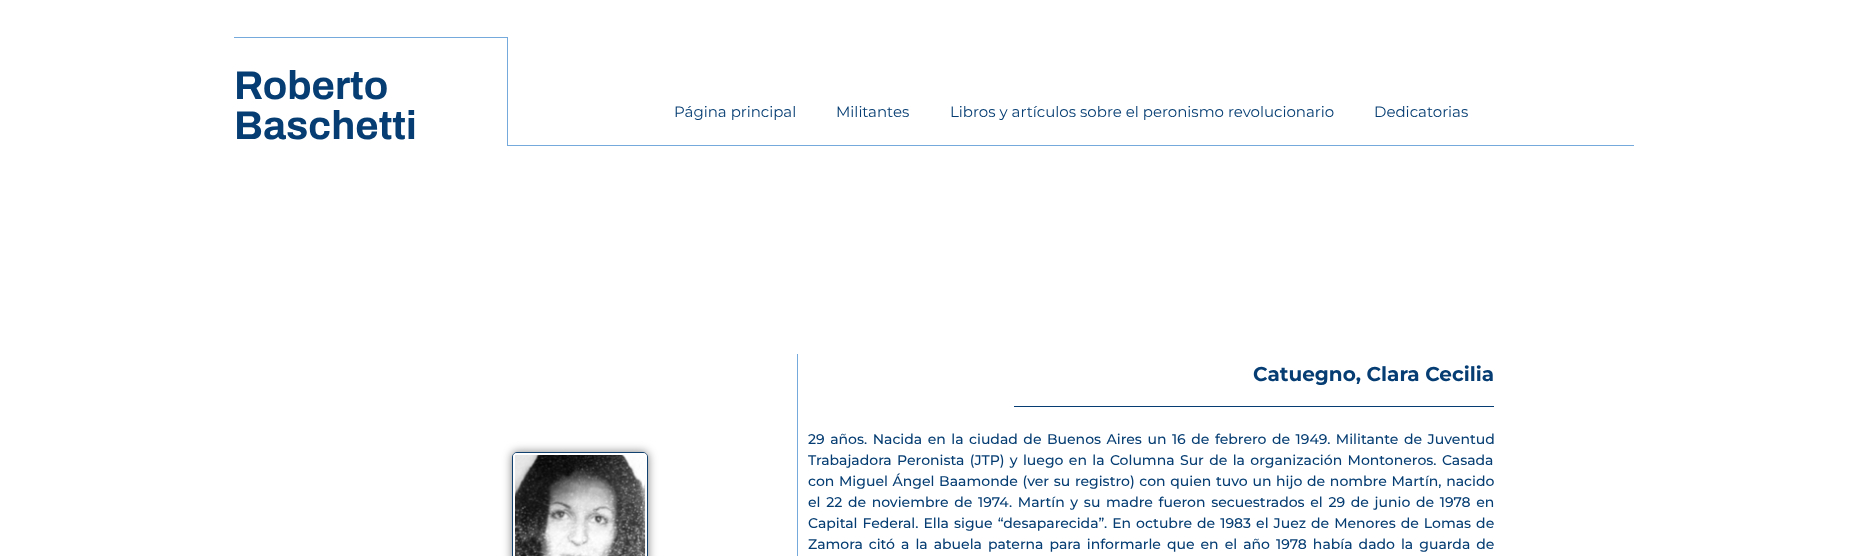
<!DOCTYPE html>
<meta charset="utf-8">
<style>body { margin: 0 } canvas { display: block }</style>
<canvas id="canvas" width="1868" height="556"></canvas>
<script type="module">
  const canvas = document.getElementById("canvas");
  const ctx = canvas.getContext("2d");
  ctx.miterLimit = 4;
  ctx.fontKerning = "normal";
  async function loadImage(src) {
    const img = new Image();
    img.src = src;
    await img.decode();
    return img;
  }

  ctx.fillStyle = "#ffffff";
  ctx.fillRect(0, 0, 1868, 556);
  ctx.fillStyle = "#75aadd";
  ctx.fillRect(234, 37, 274, 1);
  ctx.fillRect(507, 37, 1, 109);
  ctx.font = "bold 40px Archivo";
  ctx.fillStyle = "#063e73";
  ctx.fillText("Roberto", 234, 99);
  ctx.fillText("Baschetti", 234, 139);
  ctx.fillStyle = "#75aadd";
  ctx.fillRect(508, 145, 1126, 1);
  ctx.font = "15px Montserrat";
  ctx.fillStyle = "#063e73";
  ctx.fillText("Página principal", 674, 117);
  ctx.fillText("Militantes", 836, 117);
  ctx.fillText("Libros y artículos sobre el peronismo revolucionario", 950, 117);
  ctx.fillText("Dedicatorias", 1374, 117);
  ctx.fillStyle = "#75aadd";
  ctx.fillRect(797, 354, 1, 202);
  ctx.fillStyle = "rgba(0, 0, 0, 0.5)";
  ctx.filter = "blur(5px)";
  ctx.beginPath();
  ctx.roundRect(512, 452, 136, 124, 5);
  ctx.fill();
  ctx.filter = "none";
  ctx.beginPath();
  ctx.roundRect(512.5, 452.5, 135, 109, 4.5);
  ctx.strokeStyle = "#11416e";
  ctx.stroke();
  ctx.drawImage(await loadImage("img1.png"), 513, 453, 134, 103);
  ctx.font = "bold 20px Montserrat";
  ctx.fillStyle = "#063e73";
  ctx.fillText("Catuegno, Clara Cecilia", 1253, 381);
  ctx.fillRect(1014, 406, 480, 1);
  ctx.wordSpacing = "1.75px";
  ctx.font = "500 14px Montserrat";
  ctx.fillText("29 años. Nacida en la ciudad de Buenos Aires un 16 de febrero de 1949. Militante de Juventud", 808, 444);
  ctx.wordSpacing = "1.6px";
  ctx.fillText("Trabajadora Peronista (JTP) y luego en la Columna Sur de la organización Montoneros. Casada", 808, 465);
  ctx.wordSpacing = "0.9px";
  ctx.fillText("con Miguel Ángel Baamonde (ver su registro) con quien tuvo un hijo de nombre Martín, nacido", 808, 486);
  ctx.wordSpacing = "1.9px";
  ctx.fillText("el 22 de noviembre de 1974. Martín y su madre fueron secuestrados el 29 de junio de 1978 en", 808, 507);
  ctx.wordSpacing = "1.25px";
  ctx.fillText("Capital Federal. Ella sigue “desaparecida”. En octubre de 1983 el Juez de Menores de Lomas de", 808, 528);
  ctx.wordSpacing = "2.25px";
  ctx.fillText("Zamora citó a la abuela paterna para informarle que en el año 1978 había dado la guarda de", 808, 549);
</script>
